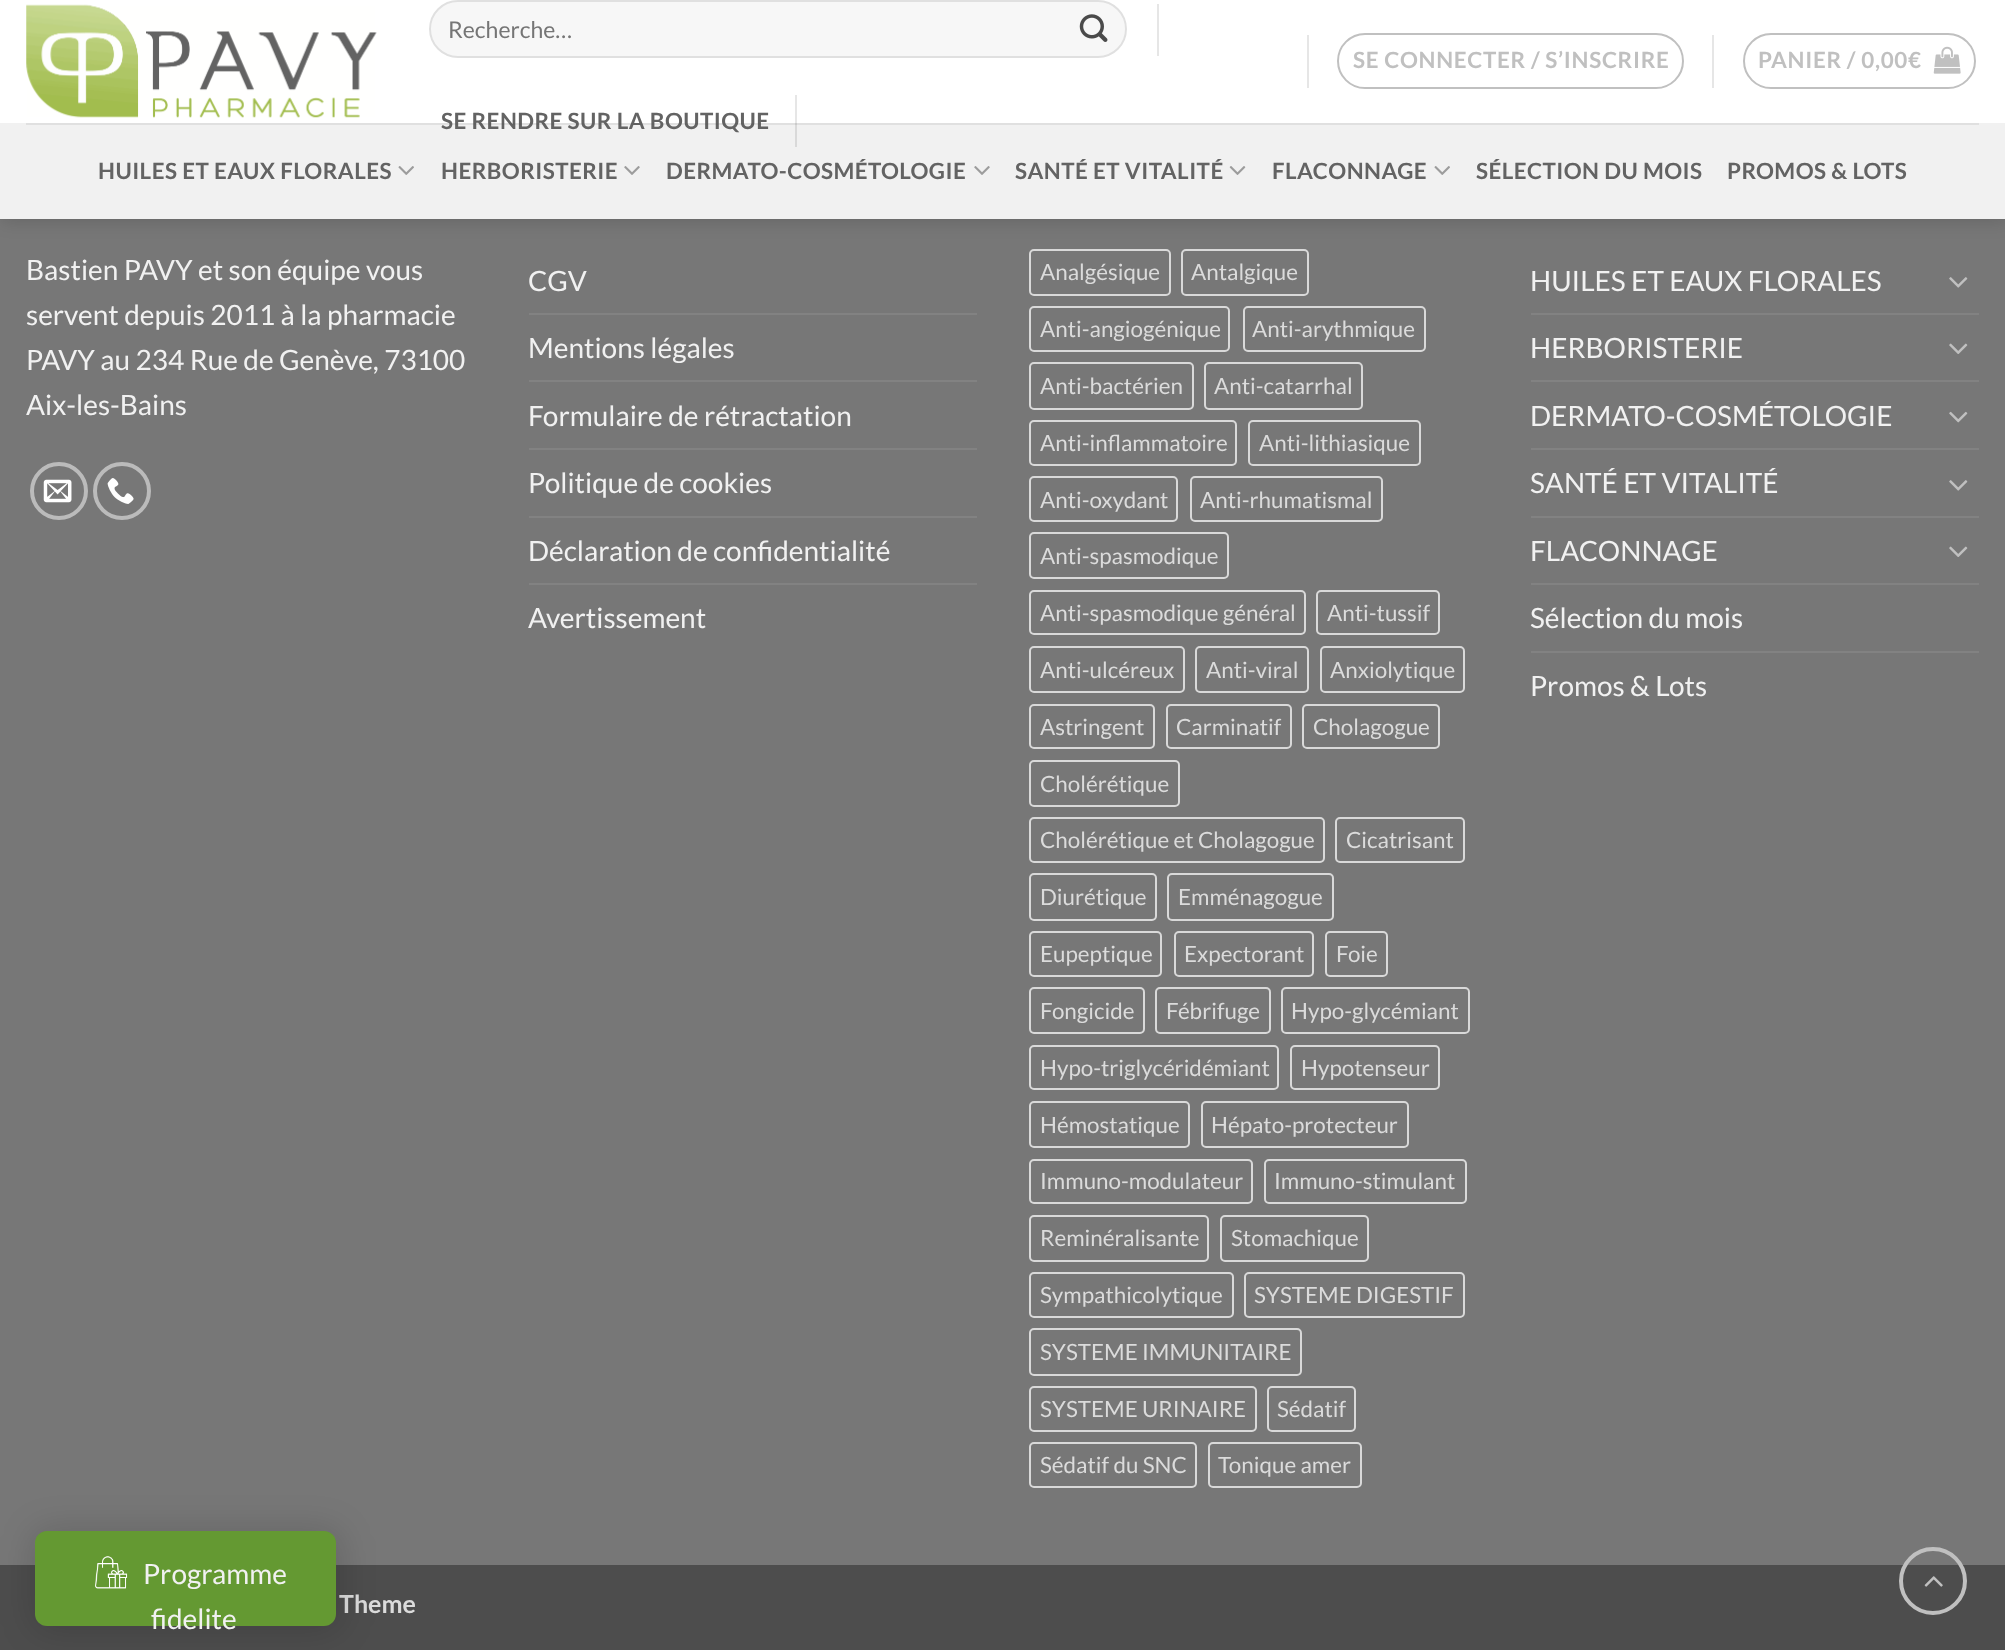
<!DOCTYPE html>
<meta charset="utf-8">
<style>body { margin: 0 } canvas { display: block }</style>
<canvas id="canvas" width="2005" height="1650"></canvas>
<script type="module">
  const canvas = document.getElementById("canvas");
  const ctx = canvas.getContext("2d");
  ctx.miterLimit = 4;
  ctx.fontKerning = "normal";
  async function loadImage(src) {
    const img = new Image();
    img.src = src;
    await img.decode();
    return img;
  }

  ctx.fillStyle = "#777777";
  ctx.fillRect(0, 0, 2005, 1650);
  ctx.fillStyle = "rgba(0, 0, 0, 0.15)";
  ctx.filter = "blur(9px)";
  ctx.beginPath();
  ctx.rect(2, 2, 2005, 219);
  ctx.fill();
  ctx.filter = "none";
  ctx.fillStyle = "#ffffff";
  ctx.fillRect(0, 0, 2005, 123);
  ctx.fillStyle = "#e6e6e6";
  ctx.fillRect(795, 95, 2, 28);
  ctx.drawImage(await loadImage("img1.png"), 26, 4, 351, 114);
  ctx.fillStyle = "#f7f7f7";
  ctx.beginPath();
  ctx.roundRect(429, 0, 698, 58, 29);
  ctx.fill();
  ctx.beginPath();
  ctx.roundRect(430, 1, 696, 56, 28);
  ctx.strokeStyle = "rgba(0, 0, 0, 0.09)";
  ctx.lineWidth = 2;
  ctx.stroke();
  ctx.font = "23px Lato";
  ctx.fillStyle = "#757575";
  ctx.fillText("Recherche…", 448, 38);
  ctx.drawImage(await loadImage("img2.png"), 1079, 14, 29, 28);
  ctx.fillStyle = "#e6e6e6";
  ctx.fillRect(1157, 4, 2, 52);
  ctx.fillStyle = "#f1f1f1";
  ctx.fillRect(0, 123, 2005, 96);
  ctx.letterSpacing = "0.45px";
  ctx.font = "bold 22.4px Lato";
  ctx.fillStyle = "#636363";
  ctx.fillText("SE RENDRE SUR LA BOUTIQUE", 441, 129);
  ctx.fillStyle = "#e6e6e6";
  ctx.fillRect(1307, 35, 2, 53);
  ctx.beginPath();
  ctx.roundRect(1338, 34, 345, 54, 27);
  ctx.strokeStyle = "#c0c0c0";
  ctx.stroke();
  ctx.letterSpacing = "0.7px";
  ctx.fillStyle = "#c0c0c0";
  ctx.fillText("SE CONNECTER / S’INSCRIRE", 1353, 68);
  ctx.fillStyle = "#e6e6e6";
  ctx.fillRect(1712, 35, 2, 53);
  ctx.beginPath();
  ctx.roundRect(1744, 34, 231, 54, 27);
  ctx.stroke();
  ctx.fillStyle = "#c0c0c0";
  ctx.fillText("PANIER / 0,00€", 1758, 68);
  ctx.drawImage(await loadImage("img3.png"), 1933, 46, 28, 28);
  ctx.fillStyle = "#d9d9d9";
  ctx.fillRect(795, 123, 2, 24);
  ctx.fillStyle = "rgba(74, 74, 74, 0.1)";
  ctx.fillRect(26, 123, 1953, 2);
  ctx.letterSpacing = "0.45px";
  ctx.fillStyle = "#636363";
  ctx.fillText("HUILES ET EAUX FLORALES", 98, 179);
  ctx.drawImage(await loadImage("img4.png"), 398, 166, 16, 9);
  ctx.fillText("HERBORISTERIE", 441, 179);
  ctx.drawImage(await loadImage("img5.png"), 624, 166, 16, 9);
  ctx.fillText("DERMATO-COSMÉTOLOGIE", 666, 179);
  ctx.drawImage(await loadImage("img5.png"), 974, 166, 16, 9);
  ctx.fillText("SANTÉ ET VITALITÉ", 1015, 179);
  ctx.drawImage(await loadImage("img6.png"), 1229, 166, 17, 9);
  ctx.fillText("FLACONNAGE", 1272, 179);
  ctx.drawImage(await loadImage("img4.png"), 1434, 166, 16, 9);
  ctx.fillText("SÉLECTION DU MOIS", 1476, 179);
  ctx.fillText("PROMOS & LOTS", 1727, 179);
  ctx.letterSpacing = "0px";
  ctx.font = "28px Lato";
  ctx.fillStyle = "#f1f1f1";
  ctx.fillText("Bastien PAVY et son équipe vous", 26, 280);
  ctx.fillText("servent depuis 2011 à la pharmacie", 26, 325);
  ctx.fillText("PAVY au 234 Rue de Genève, 73100", 26, 370);
  ctx.fillText("Aix-les-Bains", 26, 415);
  ctx.beginPath();
  ctx.arc(59, 491, 27, 0, Math.PI * 2);
  ctx.strokeStyle = "#bbbbbb";
  ctx.lineWidth = 4;
  ctx.stroke();
  ctx.drawImage(await loadImage("img7.png"), 43, 479, 29, 24);
  ctx.beginPath();
  ctx.arc(122, 491, 27, 0, Math.PI * 2);
  ctx.stroke();
  ctx.drawImage(await loadImage("img8.png"), 107, 478, 27, 26);
  ctx.fillText("CGV", 528, 291);
  ctx.fillStyle = "#828282";
  ctx.fillRect(529, 313, 448, 2);
  ctx.fillStyle = "#f1f1f1";
  ctx.fillText("Mentions légales", 528, 358);
  ctx.fillStyle = "#828282";
  ctx.fillRect(529, 380, 448, 2);
  ctx.fillStyle = "#f1f1f1";
  ctx.fillText("Formulaire de rétractation", 528, 426);
  ctx.fillStyle = "#828282";
  ctx.fillRect(529, 448, 448, 2);
  ctx.fillStyle = "#f1f1f1";
  ctx.fillText("Politique de cookies", 528, 493);
  ctx.fillStyle = "#828282";
  ctx.fillRect(529, 516, 448, 2);
  ctx.fillStyle = "#f1f1f1";
  ctx.fillText("Déclaration de confidentialité", 528, 561);
  ctx.fillStyle = "#828282";
  ctx.fillRect(529, 583, 448, 2);
  ctx.fillStyle = "#f1f1f1";
  ctx.fillText("Avertissement", 528, 628);
  ctx.beginPath();
  ctx.roundRect(1030, 250, 140, 45, 4);
  ctx.strokeStyle = "#d9d9d9";
  ctx.lineWidth = 2;
  ctx.stroke();
  ctx.font = "22.4px Lato";
  ctx.fillStyle = "#dbdbdb";
  ctx.fillText("Analgésique", 1040, 280);
  ctx.beginPath();
  ctx.roundRect(1182, 250, 126, 45, 4);
  ctx.stroke();
  ctx.fillText("Antalgique", 1191, 280);
  ctx.beginPath();
  ctx.roundRect(1030, 307, 199, 44, 4);
  ctx.stroke();
  ctx.fillText("Anti-angiogénique", 1040, 337);
  ctx.beginPath();
  ctx.roundRect(1244, 307, 181, 44, 4);
  ctx.stroke();
  ctx.fillText("Anti-arythmique", 1252, 337);
  ctx.beginPath();
  ctx.roundRect(1030, 363, 163, 46, 4);
  ctx.stroke();
  ctx.fillText("Anti-bactérien", 1040, 394);
  ctx.beginPath();
  ctx.roundRect(1205, 363, 157, 46, 4);
  ctx.stroke();
  ctx.fillText("Anti-catarrhal", 1214, 394);
  ctx.beginPath();
  ctx.roundRect(1030, 421, 206, 44, 4);
  ctx.stroke();
  ctx.fillText("Anti-inflammatoire", 1040, 451);
  ctx.beginPath();
  ctx.roundRect(1249, 421, 171, 44, 4);
  ctx.stroke();
  ctx.fillText("Anti-lithiasique", 1259, 451);
  ctx.beginPath();
  ctx.roundRect(1030, 477, 147, 44, 4);
  ctx.stroke();
  ctx.fillText("Anti-oxydant", 1040, 508);
  ctx.beginPath();
  ctx.roundRect(1191, 477, 191, 44, 4);
  ctx.stroke();
  ctx.fillText("Anti-rhumatismal", 1200, 508);
  ctx.beginPath();
  ctx.roundRect(1030, 533, 198, 45, 4);
  ctx.stroke();
  ctx.fillText("Anti-spasmodique", 1040, 564);
  ctx.beginPath();
  ctx.roundRect(1030, 591, 275, 43, 4);
  ctx.stroke();
  ctx.fillText("Anti-spasmodique général", 1040, 621);
  ctx.beginPath();
  ctx.roundRect(1317, 591, 122, 43, 4);
  ctx.stroke();
  ctx.fillText("Anti-tussif", 1327, 621);
  ctx.beginPath();
  ctx.roundRect(1030, 647, 154, 45, 4);
  ctx.stroke();
  ctx.fillText("Anti-ulcéreux", 1040, 678);
  ctx.beginPath();
  ctx.roundRect(1196, 647, 112, 45, 4);
  ctx.stroke();
  ctx.fillText("Anti-viral", 1206, 678);
  ctx.beginPath();
  ctx.roundRect(1321, 647, 143, 45, 4);
  ctx.stroke();
  ctx.fillText("Anxiolytique", 1330, 678);
  ctx.beginPath();
  ctx.roundRect(1030, 705, 124, 43, 4);
  ctx.stroke();
  ctx.fillText("Astringent", 1040, 735);
  ctx.beginPath();
  ctx.roundRect(1167, 705, 124, 43, 4);
  ctx.stroke();
  ctx.fillText("Carminatif", 1176, 735);
  ctx.beginPath();
  ctx.roundRect(1303, 705, 136, 43, 4);
  ctx.stroke();
  ctx.fillText("Cholagogue", 1313, 735);
  ctx.beginPath();
  ctx.roundRect(1030, 761, 149, 45, 4);
  ctx.stroke();
  ctx.fillText("Cholérétique", 1040, 792);
  ctx.beginPath();
  ctx.roundRect(1030, 818, 294, 44, 4);
  ctx.stroke();
  ctx.fillText("Cholérétique et Cholagogue", 1040, 848);
  ctx.beginPath();
  ctx.roundRect(1336, 818, 128, 44, 4);
  ctx.stroke();
  ctx.fillText("Cicatrisant", 1346, 848);
  ctx.beginPath();
  ctx.roundRect(1030, 874, 126, 46, 4);
  ctx.stroke();
  ctx.fillText("Diurétique", 1040, 905);
  ctx.beginPath();
  ctx.roundRect(1168, 874, 165, 46, 4);
  ctx.stroke();
  ctx.fillText("Emménagogue", 1178, 905);
  ctx.beginPath();
  ctx.roundRect(1030, 932, 131, 44, 4);
  ctx.stroke();
  ctx.fillText("Eupeptique", 1040, 962);
  ctx.beginPath();
  ctx.roundRect(1175, 932, 138, 44, 4);
  ctx.stroke();
  ctx.fillText("Expectorant", 1184, 962);
  ctx.beginPath();
  ctx.roundRect(1326, 932, 61, 44, 4);
  ctx.stroke();
  ctx.fillText("Foie", 1336, 962);
  ctx.beginPath();
  ctx.roundRect(1030, 988, 114, 45, 4);
  ctx.stroke();
  ctx.fillText("Fongicide", 1040, 1019);
  ctx.beginPath();
  ctx.roundRect(1156, 988, 114, 45, 4);
  ctx.stroke();
  ctx.fillText("Fébrifuge", 1166, 1019);
  ctx.beginPath();
  ctx.roundRect(1282, 988, 187, 45, 4);
  ctx.stroke();
  ctx.fillText("Hypo-glycémiant", 1291, 1019);
  ctx.beginPath();
  ctx.roundRect(1030, 1046, 248, 43, 4);
  ctx.stroke();
  ctx.fillText("Hypo-triglycéridémiant", 1040, 1076);
  ctx.beginPath();
  ctx.roundRect(1291, 1046, 148, 43, 4);
  ctx.stroke();
  ctx.fillText("Hypotenseur", 1301, 1076);
  ctx.beginPath();
  ctx.roundRect(1030, 1102, 159, 45, 4);
  ctx.stroke();
  ctx.fillText("Hémostatique", 1040, 1133);
  ctx.beginPath();
  ctx.roundRect(1202, 1102, 206, 45, 4);
  ctx.stroke();
  ctx.fillText("Hépato-protecteur", 1211, 1133);
  ctx.beginPath();
  ctx.roundRect(1030, 1160, 222, 43, 4);
  ctx.stroke();
  ctx.fillText("Immuno-modulateur", 1040, 1189);
  ctx.beginPath();
  ctx.roundRect(1265, 1160, 201, 43, 4);
  ctx.stroke();
  ctx.fillText("Immuno-stimulant", 1274, 1189);
  ctx.beginPath();
  ctx.roundRect(1030, 1216, 178, 45, 4);
  ctx.stroke();
  ctx.fillText("Reminéralisante", 1040, 1246);
  ctx.beginPath();
  ctx.roundRect(1221, 1216, 147, 45, 4);
  ctx.stroke();
  ctx.fillText("Stomachique", 1231, 1246);
  ctx.beginPath();
  ctx.roundRect(1030, 1273, 203, 44, 4);
  ctx.stroke();
  ctx.fillText("Sympathicolytique", 1040, 1303);
  ctx.beginPath();
  ctx.roundRect(1245, 1273, 219, 44, 4);
  ctx.stroke();
  ctx.fillText("SYSTEME DIGESTIF", 1254, 1303);
  ctx.beginPath();
  ctx.roundRect(1030, 1329, 271, 46, 4);
  ctx.stroke();
  ctx.fillText("SYSTEME IMMUNITAIRE", 1040, 1360);
  ctx.beginPath();
  ctx.roundRect(1030, 1387, 226, 44, 4);
  ctx.stroke();
  ctx.fillText("SYSTEME URINAIRE", 1040, 1417);
  ctx.beginPath();
  ctx.roundRect(1268, 1387, 87, 44, 4);
  ctx.stroke();
  ctx.fillText("Sédatif", 1277, 1417);
  ctx.beginPath();
  ctx.roundRect(1030, 1443, 166, 44, 4);
  ctx.stroke();
  ctx.fillText("Sédatif du SNC", 1040, 1473);
  ctx.beginPath();
  ctx.roundRect(1209, 1443, 152, 44, 4);
  ctx.stroke();
  ctx.fillText("Tonique amer", 1218, 1473);
  ctx.font = "28px Lato";
  ctx.fillStyle = "#f1f1f1";
  ctx.fillText("HUILES ET EAUX FLORALES", 1530, 291);
  ctx.drawImage(await loadImage("img9.png"), 1949, 277, 19, 11);
  ctx.fillStyle = "#828282";
  ctx.fillRect(1531, 313, 448, 2);
  ctx.fillStyle = "#f1f1f1";
  ctx.fillText("HERBORISTERIE", 1530, 358);
  ctx.drawImage(await loadImage("img10.png"), 1949, 343, 19, 11);
  ctx.fillStyle = "#828282";
  ctx.fillRect(1531, 380, 448, 2);
  ctx.fillStyle = "#f1f1f1";
  ctx.fillText("DERMATO-COSMÉTOLOGIE", 1530, 426);
  ctx.drawImage(await loadImage("img11.png"), 1949, 411, 19, 12);
  ctx.fillStyle = "#828282";
  ctx.fillRect(1531, 448, 448, 2);
  ctx.fillStyle = "#f1f1f1";
  ctx.fillText("SANTÉ ET VITALITÉ", 1530, 493);
  ctx.drawImage(await loadImage("img9.png"), 1949, 480, 19, 11);
  ctx.fillStyle = "#828282";
  ctx.fillRect(1531, 516, 448, 2);
  ctx.fillStyle = "#f1f1f1";
  ctx.fillText("FLACONNAGE", 1530, 561);
  ctx.drawImage(await loadImage("img10.png"), 1949, 546, 19, 11);
  ctx.fillStyle = "#828282";
  ctx.fillRect(1531, 583, 448, 2);
  ctx.fillStyle = "#f1f1f1";
  ctx.fillText("Sélection du mois", 1530, 628);
  ctx.fillStyle = "#828282";
  ctx.fillRect(1531, 651, 448, 2);
  ctx.fillStyle = "#f1f1f1";
  ctx.fillText("Promos & Lots", 1530, 696);
  ctx.fillStyle = "#4d4d4d";
  ctx.fillRect(0, 1565, 2005, 85);
  ctx.font = "bold 25px Lato";
  ctx.fillStyle = "#dbdbdb";
  ctx.fillText("Theme", 339, 1613);
  ctx.beginPath();
  ctx.arc(1933, 1581, 32, 0, Math.PI * 2);
  ctx.strokeStyle = "#c0c0c0";
  ctx.lineWidth = 4;
  ctx.stroke();
  ctx.drawImage(await loadImage("img12.png"), 1924, 1576, 19, 11);
  ctx.fillStyle = "rgba(0, 0, 0, 0.15)";
  ctx.filter = "blur(17.5px)";
  ctx.beginPath();
  ctx.roundRect(33, 1530, 308, 101, 16);
  ctx.fill();
  ctx.filter = "none";
  ctx.fillStyle = "#649932";
  ctx.beginPath();
  ctx.roundRect(35, 1531, 301, 95, 12);
  ctx.fill();
  ctx.drawImage(await loadImage("img13.png"), 95, 1556, 33, 33);
  ctx.font = "28px Lato";
  ctx.fillStyle = "#f1f1f1";
  ctx.fillText("Programme", 143, 1584);
  ctx.fillText("fidelite", 151, 1629);
</script>
